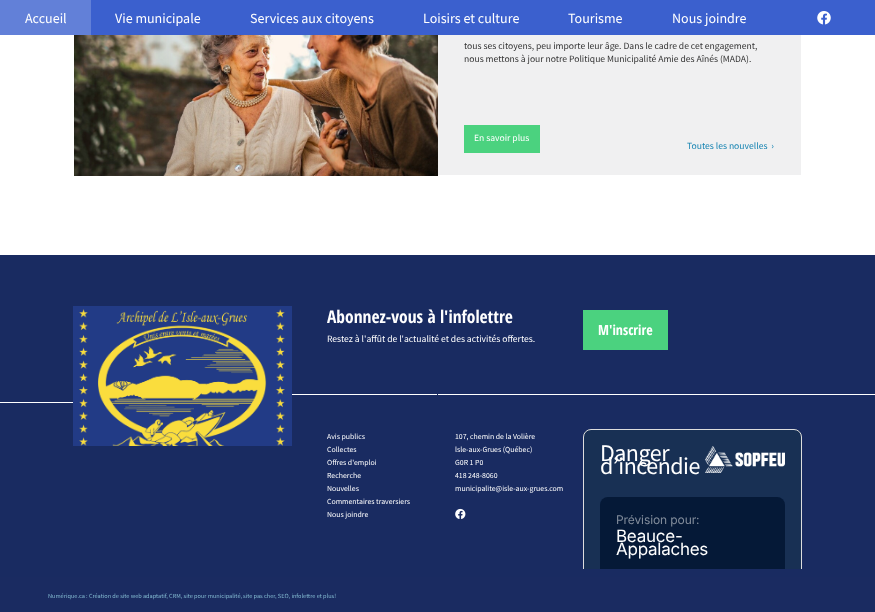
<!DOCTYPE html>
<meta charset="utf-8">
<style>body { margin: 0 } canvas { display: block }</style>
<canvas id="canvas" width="875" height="612"></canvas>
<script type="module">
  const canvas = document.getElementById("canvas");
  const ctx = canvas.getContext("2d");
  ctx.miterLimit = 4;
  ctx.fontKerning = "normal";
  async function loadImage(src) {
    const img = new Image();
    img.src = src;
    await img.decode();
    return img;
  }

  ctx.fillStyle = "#ffffff";
  ctx.fillRect(0, 0, 875, 612);
  ctx.fillStyle = "#3b60ce";
  ctx.fillRect(91, 0, 784, 35);
  ctx.fillStyle = "#6280d8";
  ctx.fillRect(0, 0, 91, 35);
  ctx.font = "14px Source Sans Pro";
  ctx.fillStyle = "#ffffff";
  ctx.fillText("Accueil", 25, 23);
  ctx.fillText("Vie municipale", 115, 23);
  ctx.fillText("Services aux citoyens", 250, 23);
  ctx.fillText("Loisirs et culture", 423, 23);
  ctx.fillText("Tourisme", 568, 23);
  ctx.fillText("Nous joindre", 672, 23);
  ctx.drawImage(await loadImage("img1.png"), 817, 11, 14, 14);
  ctx.drawImage(await loadImage("img2.png"), 74, 35, 364, 141);
  ctx.fillStyle = "#f0f0f1";
  ctx.fillRect(438, 35, 363, 140);
  ctx.font = "9.6px Source Sans Pro";
  ctx.fillStyle = "#353535";
  ctx.fillText("tous ses citoyens, peu importe leur âge. Dans le cadre de cet engagement,", 464, 49);
  ctx.fillText("nous mettons à jour notre Politique Municipalité Amie des Aînés (MADA).", 464, 62);
  ctx.fillStyle = "#4bd27f";
  ctx.fillRect(464, 125, 76, 28);
  ctx.fillStyle = "#ffffff";
  ctx.fillText("En savoir plus", 474, 141);
  ctx.fillStyle = "#1784b2";
  ctx.fillText("Toutes les nouvelles  ›", 687, 149);
  ctx.fillStyle = "#192b61";
  ctx.fillRect(0, 255, 875, 322);
  ctx.fillStyle = "#223b86";
  ctx.fillRect(73, 306, 219, 140);
  ctx.drawImage(await loadImage("img3.png"), 79, 309, 206, 137);
  ctx.font = "bold 17.5px Open Sans Condensed";
  ctx.fillStyle = "#ffffff";
  ctx.fillText("Abonnez-vous à l'infolettre", 327, 323);
  ctx.font = "9.6px Source Sans Pro";
  ctx.fillText("Restez à l'affût de l'actualité et des activités offertes.", 327, 342);
  ctx.fillStyle = "#4bd27f";
  ctx.fillRect(583, 310, 85, 40);
  ctx.font = "bold 14px Open Sans Condensed";
  ctx.fillStyle = "#ffffff";
  ctx.fillText("M'inscrire", 598, 335);
  ctx.fillRect(0, 402, 73, 1);
  ctx.fillRect(292, 394, 145, 1);
  ctx.font = "7.75px Source Sans Pro";
  ctx.fillText("Avis publics", 327, 439);
  ctx.fillText("Collectes", 327, 452);
  ctx.fillText("Offres d'emploi", 327, 465);
  ctx.fillText("Recherche", 327, 478);
  ctx.fillText("Nouvelles", 327, 491);
  ctx.fillText("Commentaires traversiers", 327, 504);
  ctx.fillText("Nous joindre", 327, 517);
  ctx.fillRect(438, 394, 437, 1);
  ctx.fillText("107, chemin de la Volière", 455, 439);
  ctx.fillText("lsle-aux-Grues (Québec)", 455, 452);
  ctx.fillText("G0R 1 P0", 455, 465);
  ctx.fillText("418 248-8060", 455, 478);
  ctx.fillText("municipalite@isle-aux-grues.com", 455, 491);
  ctx.drawImage(await loadImage("img4.png"), 455, 508, 11, 11);
  ctx.fillStyle = "#183054";
  ctx.beginPath();
  ctx.roundRect(583, 429, 219, 140, [8, 8, 0, 0]);
  ctx.fill();
  ctx.fillStyle = "#1a2b61";
  ctx.fillRect(0, 577, 875, 35);
  ctx.save();
  ctx.beginPath();
  ctx.rect(583, 429, 219, 140);
  ctx.clip();
  ctx.beginPath();
  ctx.roundRect(583.5, 429.5, 218, 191, 7.5);
  ctx.strokeStyle = "#dddddd";
  ctx.stroke();
  ctx.restore();
  ctx.letterSpacing = "-0.5px";
  ctx.font = "24px Source Sans Pro";
  ctx.fillStyle = "#ffffff";
  ctx.fillText("Danger", 600, 461);
  ctx.fillText("d’incendie", 600, 474);
  ctx.drawImage(await loadImage("img5.png"), 705, 446, 80, 27);
  ctx.fillStyle = "#051937";
  ctx.beginPath();
  ctx.roundRect(600, 497, 185, 72, [8, 8, 0, 0]);
  ctx.fill();
  ctx.letterSpacing = "-0.1px";
  ctx.font = "12px Inter";
  ctx.fillStyle = "#828c9b";
  ctx.fillText("Prévision pour:", 616, 524);
  ctx.letterSpacing = "-0.25px";
  ctx.font = "17px Inter";
  ctx.fillStyle = "#ffffff";
  ctx.fillText("Beauce-", 616, 542);
  ctx.fillText("Appalaches", 616, 555);
  ctx.letterSpacing = "0px";
  ctx.font = "6.25px Source Sans Pro";
  ctx.fillStyle = "#83bad1";
  ctx.fillText("Numérique.ca : Création de site web adaptatif, CRM, site pour municipalité,", 48, 598);
  ctx.fillText("site pas cher", 243, 598);
  ctx.fillText(", SEO, infolettre et plus!", 275, 598);
</script>
